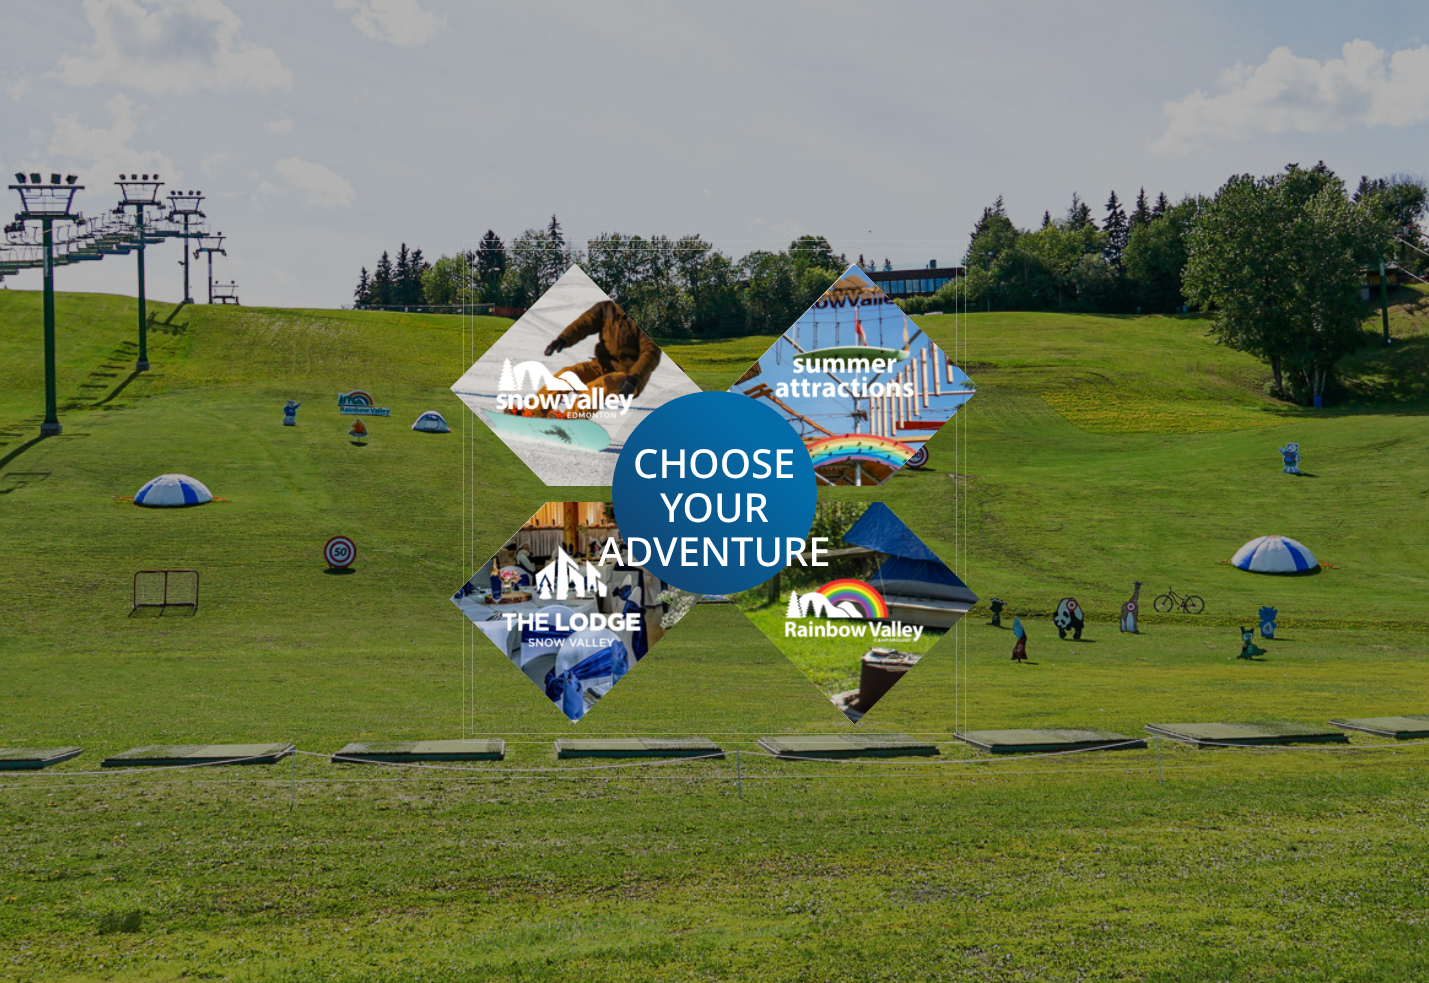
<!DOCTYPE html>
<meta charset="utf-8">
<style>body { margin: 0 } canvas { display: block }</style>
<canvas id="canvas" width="1429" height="983"></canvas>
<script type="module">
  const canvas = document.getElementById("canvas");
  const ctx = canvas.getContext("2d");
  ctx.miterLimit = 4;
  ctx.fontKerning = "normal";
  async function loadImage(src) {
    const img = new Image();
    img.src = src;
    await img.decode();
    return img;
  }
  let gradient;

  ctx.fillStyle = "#ffffff";
  ctx.fillRect(0, 0, 1429, 983);
  ctx.drawImage(await loadImage("img1.png"), 0, 0, 1429, 983);
  ctx.strokeStyle = "rgba(179, 179, 179, 0.5)";
  ctx.strokeRect(472.5, 249.5, 484, 484);
  ctx.strokeRect(463.5, 240.5, 502, 502);
  ctx.save();
  ctx.beginPath();
  ctx.rect(437, 214, 270, 272);
  ctx.clip();
  gradient = ctx.createLinearGradient(512, 326, 665, 478);
  gradient.addColorStop(0, "#cccccc");
  gradient.addColorStop(1, "#ffffff");
  ctx.fillStyle = gradient;
  ctx.beginPath();
  ctx.moveTo(575, 263);
  ctx.lineTo(727, 416);
  ctx.lineTo(602, 541);
  ctx.lineTo(450, 388);
  ctx.closePath();
  ctx.fill();
  ctx.restore();
  ctx.drawImage(await loadImage("img2.png"), 450, 263, 254, 223);
  ctx.save();
  ctx.beginPath();
  ctx.rect(437, 214, 270, 272);
  ctx.clip();
  ctx.fillStyle = "rgba(0, 0, 0, 0.1)";
  ctx.beginPath();
  ctx.moveTo(575, 263);
  ctx.lineTo(450, 388);
  ctx.lineTo(602, 541);
  ctx.lineTo(727, 416);
  ctx.closePath();
  ctx.fill();
  ctx.restore();
  ctx.drawImage(await loadImage("img3.png"), 496, 358, 139, 61);
  ctx.save();
  ctx.beginPath();
  ctx.rect(723, 214, 269, 272);
  ctx.clip();
  gradient = ctx.createLinearGradient(764, 478, 917, 326);
  gradient.addColorStop(0, "#cccccc");
  gradient.addColorStop(1, "#ffffff");
  ctx.fillStyle = gradient;
  ctx.beginPath();
  ctx.moveTo(702, 416);
  ctx.lineTo(854, 263);
  ctx.lineTo(979, 388);
  ctx.lineTo(827, 541);
  ctx.closePath();
  ctx.fill();
  ctx.restore();
  ctx.drawImage(await loadImage("img4.png"), 726, 264, 254, 222);
  ctx.save();
  ctx.beginPath();
  ctx.rect(723, 214, 269, 272);
  ctx.clip();
  ctx.fillStyle = "rgba(0, 0, 0, 0.1)";
  ctx.beginPath();
  ctx.moveTo(702, 416);
  ctx.lineTo(827, 541);
  ctx.lineTo(979, 388);
  ctx.lineTo(854, 263);
  ctx.closePath();
  ctx.fill();
  ctx.restore();
  ctx.drawImage(await loadImage("img5.png"), 775, 357, 140, 41);
  ctx.save();
  ctx.beginPath();
  ctx.rect(437, 502, 270, 271);
  ctx.clip();
  gradient = ctx.createLinearGradient(512, 661, 665, 509);
  gradient.addColorStop(0, "#cccccc");
  gradient.addColorStop(1, "#ffffff");
  ctx.fillStyle = gradient;
  ctx.beginPath();
  ctx.moveTo(450, 599);
  ctx.lineTo(602, 446);
  ctx.lineTo(727, 571);
  ctx.lineTo(575, 724);
  ctx.closePath();
  ctx.fill();
  ctx.restore();
  ctx.drawImage(await loadImage("img6.png"), 450, 502, 256, 218);
  ctx.save();
  ctx.beginPath();
  ctx.rect(437, 502, 270, 271);
  ctx.clip();
  ctx.fillStyle = "rgba(0, 0, 0, 0.1)";
  ctx.beginPath();
  ctx.moveTo(450, 599);
  ctx.lineTo(575, 724);
  ctx.lineTo(727, 571);
  ctx.lineTo(602, 446);
  ctx.closePath();
  ctx.fill();
  ctx.restore();
  ctx.drawImage(await loadImage("img7.png"), 501, 545, 140, 103);
  ctx.save();
  ctx.beginPath();
  ctx.rect(723, 502, 269, 271);
  ctx.clip();
  gradient = ctx.createLinearGradient(764, 509, 917, 661);
  gradient.addColorStop(0, "#cccccc");
  gradient.addColorStop(1, "#ffffff");
  ctx.fillStyle = gradient;
  ctx.beginPath();
  ctx.moveTo(827, 446);
  ctx.lineTo(979, 599);
  ctx.lineTo(854, 724);
  ctx.lineTo(702, 571);
  ctx.closePath();
  ctx.fill();
  ctx.restore();
  ctx.drawImage(await loadImage("img8.png"), 724, 502, 256, 223);
  ctx.save();
  ctx.beginPath();
  ctx.rect(723, 502, 269, 271);
  ctx.clip();
  ctx.fillStyle = "rgba(0, 0, 0, 0.1)";
  ctx.beginPath();
  ctx.moveTo(827, 446);
  ctx.lineTo(702, 571);
  ctx.lineTo(854, 724);
  ctx.lineTo(979, 599);
  ctx.closePath();
  ctx.fill();
  ctx.restore();
  ctx.drawImage(await loadImage("img9.png"), 784, 578, 140, 64);
  ctx.beginPath();
  ctx.roundRect(606, 385, 217, 216, 108);
  ctx.strokeStyle = "rgba(0, 0, 0, 0.07)";
  ctx.lineWidth = 12;
  ctx.stroke();
  gradient = ctx.createLinearGradient(612, 595, 817, 391);
  gradient.addColorStop(0, "#143b65");
  gradient.addColorStop(0.73, "#036ba7");
  gradient.addColorStop(1, "#036ba7");
  ctx.fillStyle = gradient;
  ctx.beginPath();
  ctx.roundRect(612, 391, 205, 204, 102);
  ctx.fill();
  ctx.font = "500 40px Noto Sans";
  ctx.fillStyle = "#ffffff";
  ctx.fillText("CHOOSE", 633, 478);
  ctx.fillText("YOUR", 660, 522);
  ctx.fillText("ADVENTURE", 598, 566);
</script>
